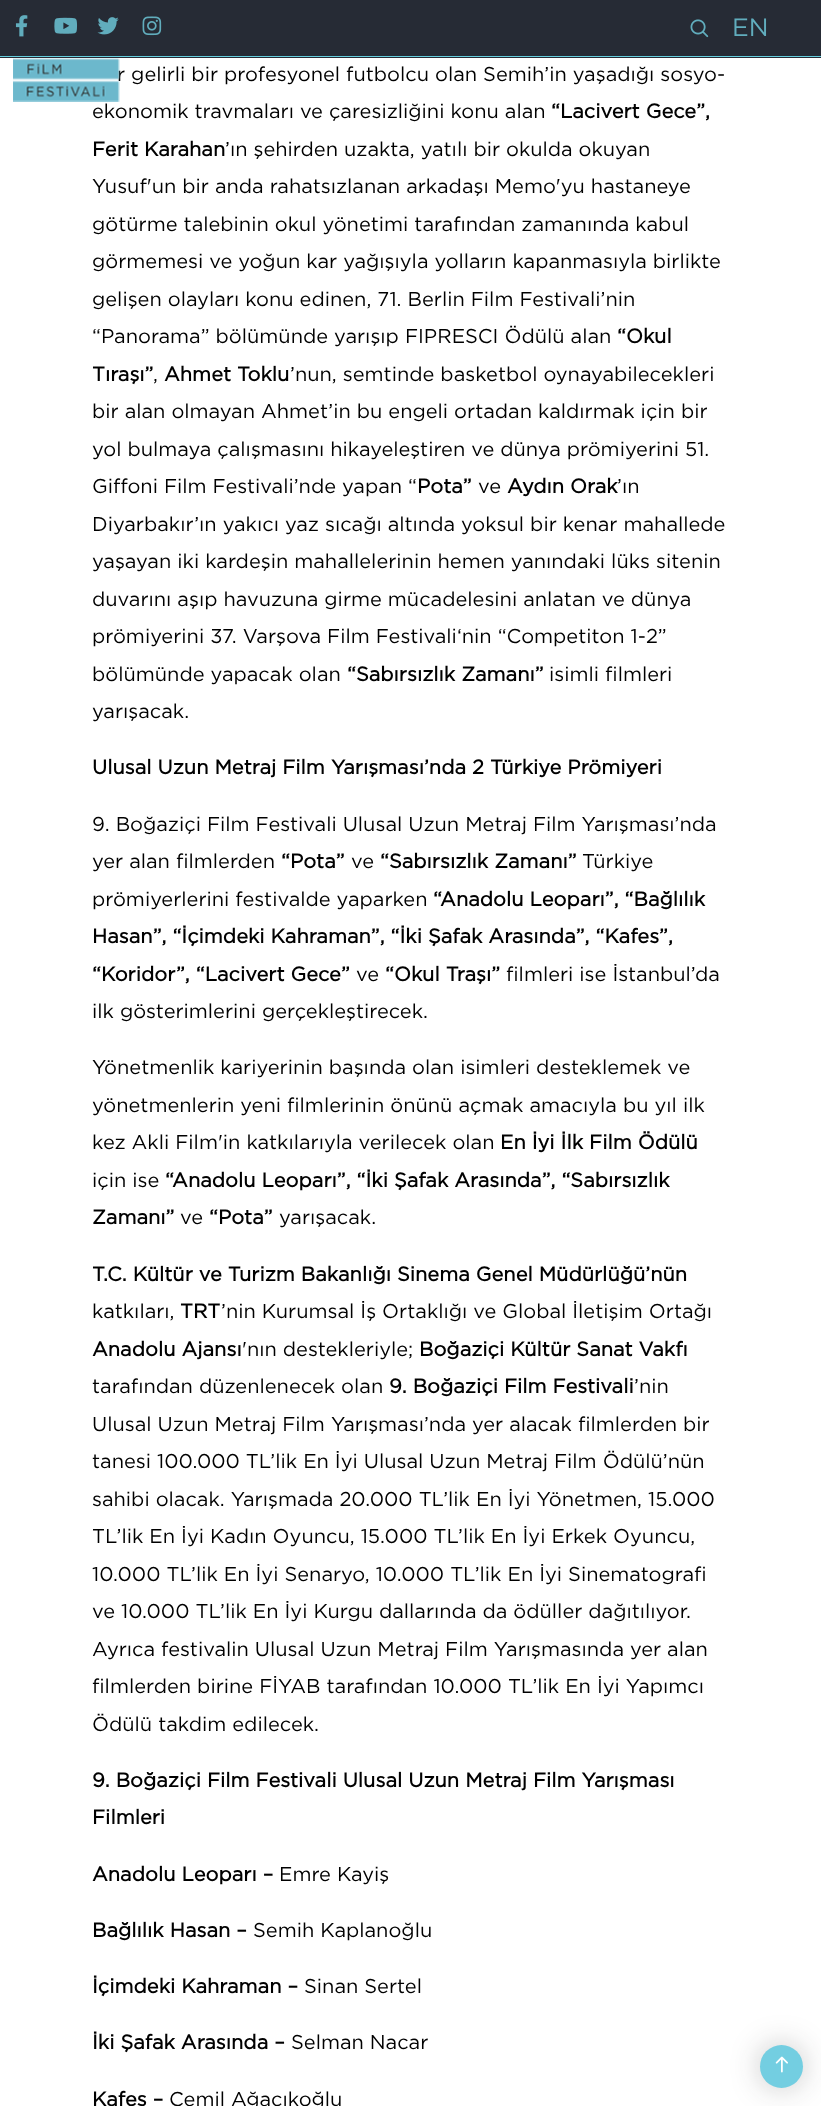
<!DOCTYPE html>
<meta charset="utf-8">
<style>body { margin: 0 } canvas { display: block }</style>
<canvas id="canvas" width="821" height="2106"></canvas>
<script type="module">
  const canvas = document.getElementById("canvas");
  const ctx = canvas.getContext("2d");
  ctx.miterLimit = 4;
  ctx.fontKerning = "normal";
  async function loadImage(src) {
    const img = new Image();
    img.src = src;
    await img.decode();
    return img;
  }

  ctx.fillStyle = "#ffffff";
  ctx.fillRect(0, 0, 821, 2106);
  ctx.fillStyle = "#262b35";
  ctx.fillRect(0, 0, 821, 58);
  ctx.fillStyle = "#65cede";
  ctx.fillRect(0, 56, 821, 1);
  ctx.drawImage(await loadImage("img1.png"), 15, 15, 13, 22);
  ctx.drawImage(await loadImage("img2.png"), 54, 17, 24, 17);
  ctx.drawImage(await loadImage("img3.png"), 97, 17, 22, 18);
  ctx.drawImage(await loadImage("img4.png"), 142, 16, 20, 20);
  ctx.drawImage(await loadImage("img5.png"), 690, 19, 19, 19);
  ctx.font = "25px Gotham";
  ctx.fillStyle = "#61adbd";
  ctx.fillText("EN", 732, 36);
  ctx.font = "20px Gotham";
  ctx.fillStyle = "#000000";
  ctx.fillText("r gelirli bir profesyonel futbolcu olan Semih’in yaşadığı sosyo-", 117, 81);
  ctx.drawImage(await loadImage("img6.png"), 13, 58, 107, 44);
  ctx.fillText("ekonomik travmaları ve çaresizliğini konu alan", 92, 118);
  ctx.font = "bold 20px Gotham";
  ctx.fillText("“Lacivert Gece”,", 551, 118);
  ctx.fillText("Ferit Karahan", 92, 156);
  ctx.font = "20px Gotham";
  ctx.fillText("’ın şehirden uzakta, yatılı bir okulda okuyan", 225, 156);
  ctx.fillText("Yusuf'un bir anda rahatsızlanan arkadaşı Memo'yu hastaneye", 92, 193);
  ctx.fillText("götürme talebinin okul yönetimi tarafından zamanında kabul", 92, 231);
  ctx.fillText("görmemesi ve yoğun kar yağışıyla yolların kapanmasıyla birlikte", 92, 268);
  ctx.fillText("gelişen olayları konu edinen, 71. Berlin Film Festivali’nin", 92, 306);
  ctx.fillText("“Panorama” bölümünde yarışıp FIPRESCI Ödülü alan", 92, 343);
  ctx.font = "bold 20px Gotham";
  ctx.fillText("“Okul", 617, 343);
  ctx.fillText("Tıraşı”", 92, 381);
  ctx.font = "20px Gotham";
  ctx.fillText(",", 153, 381);
  ctx.font = "bold 20px Gotham";
  ctx.fillText("Ahmet Toklu", 164, 381);
  ctx.font = "20px Gotham";
  ctx.fillText("’nun, semtinde basketbol oynayabilecekleri", 290, 381);
  ctx.fillText("bir alan olmayan Ahmet’in bu engeli ortadan kaldırmak için bir", 92, 418);
  ctx.fillText("yol bulmaya çalışmasını hikayeleştiren ve dünya prömiyerini 51.", 92, 456);
  ctx.fillText("Giffoni Film Festivali’nde yapan “", 92, 493);
  ctx.font = "bold 20px Gotham";
  ctx.fillText("Pota”", 417, 493);
  ctx.font = "20px Gotham";
  ctx.fillText("ve", 478, 493);
  ctx.font = "bold 20px Gotham";
  ctx.fillText("Aydın Orak", 507, 493);
  ctx.font = "20px Gotham";
  ctx.fillText("’ın", 617, 493);
  ctx.fillText("Diyarbakır’ın yakıcı yaz sıcağı altında yoksul bir kenar mahallede", 92, 531);
  ctx.fillText("yaşayan iki kardeşin mahallelerinin hemen yanındaki lüks sitenin", 92, 568);
  ctx.fillText("duvarını aşıp havuzuna girme mücadelesini anlatan ve dünya", 92, 606);
  ctx.fillText("prömiyerini 37. Varşova Film Festivali‘nin “Competiton 1-2”", 92, 643);
  ctx.fillText("bölümünde yapacak olan", 92, 681);
  ctx.font = "bold 20px Gotham";
  ctx.fillText("“Sabırsızlık Zamanı”", 347, 681);
  ctx.font = "20px Gotham";
  ctx.fillText("isimli filmleri", 549, 681);
  ctx.fillText("yarışacak.", 92, 718);
  ctx.font = "bold 20px Gotham";
  ctx.fillText("Ulusal Uzun Metraj Film Yarışması’nda 2 Türkiye Prömiyeri", 92, 774);
  ctx.font = "20px Gotham";
  ctx.fillText("9. Boğaziçi Film Festivali Ulusal Uzun Metraj Film Yarışması’nda", 92, 831);
  ctx.fillText("yer alan filmlerden", 92, 868);
  ctx.font = "bold 20px Gotham";
  ctx.fillText("“Pota”", 281, 868);
  ctx.font = "20px Gotham";
  ctx.fillText("ve", 351, 868);
  ctx.font = "bold 20px Gotham";
  ctx.fillText("“Sabırsızlık Zamanı”", 380, 868);
  ctx.font = "20px Gotham";
  ctx.fillText("Türkiye", 582, 868);
  ctx.fillText("prömiyerlerini festivalde yaparken", 92, 906);
  ctx.font = "bold 20px Gotham";
  ctx.fillText("“Anadolu Leoparı”, “Bağlılık", 433, 906);
  ctx.fillText("Hasan”, “İçimdeki Kahraman”, “İki Şafak Arasında”, “Kafes”,", 92, 943);
  ctx.fillText("“Koridor”, “Lacivert Gece”", 92, 981);
  ctx.font = "20px Gotham";
  ctx.fillText("ve", 356, 981);
  ctx.font = "bold 20px Gotham";
  ctx.fillText("“Okul Traşı”", 385, 981);
  ctx.font = "20px Gotham";
  ctx.fillText("filmleri ise İstanbul’da", 506, 981);
  ctx.fillText("ilk gösterimlerini gerçekleştirecek.", 92, 1018);
  ctx.fillText("Yönetmenlik kariyerinin başında olan isimleri desteklemek ve", 92, 1074);
  ctx.fillText("yönetmenlerin yeni filmlerinin önünü açmak amacıyla bu yıl ilk", 92, 1112);
  ctx.fillText("kez Akli Film'in katkılarıyla verilecek olan", 92, 1149);
  ctx.font = "bold 20px Gotham";
  ctx.fillText("En İyi İlk Film Ödülü", 500, 1149);
  ctx.font = "20px Gotham";
  ctx.fillText("için ise", 92, 1187);
  ctx.font = "bold 20px Gotham";
  ctx.fillText("“Anadolu Leoparı”, “İki Şafak Arasında”, “Sabırsızlık", 165, 1187);
  ctx.fillText("Zamanı”", 92, 1224);
  ctx.font = "20px Gotham";
  ctx.fillText("ve", 180, 1224);
  ctx.font = "bold 20px Gotham";
  ctx.fillText("“Pota”", 209, 1224);
  ctx.font = "20px Gotham";
  ctx.fillText("yarışacak.", 279, 1224);
  ctx.font = "bold 20px Gotham";
  ctx.fillText("T.C. Kültür ve Turizm Bakanlığı Sinema Genel Müdürlüğü’nün", 92, 1281);
  ctx.font = "20px Gotham";
  ctx.fillText("katkıları,", 92, 1318);
  ctx.font = "bold 20px Gotham";
  ctx.fillText("TRT", 180, 1318);
  ctx.font = "20px Gotham";
  ctx.fillText("’nin Kurumsal İş Ortaklığı ve Global İletişim Ortağı", 221, 1318);
  ctx.font = "bold 20px Gotham";
  ctx.fillText("Anadolu Ajansı", 92, 1356);
  ctx.font = "20px Gotham";
  ctx.fillText("'nın destekleriyle;", 242, 1356);
  ctx.font = "bold 20px Gotham";
  ctx.fillText("Boğaziçi Kültür Sanat Vakfı", 419, 1356);
  ctx.font = "20px Gotham";
  ctx.fillText("tarafından düzenlenecek olan", 92, 1393);
  ctx.font = "bold 20px Gotham";
  ctx.fillText("9. Boğaziçi Film Festivali", 389, 1393);
  ctx.font = "20px Gotham";
  ctx.fillText("’nin", 634, 1393);
  ctx.fillText("Ulusal Uzun Metraj Film Yarışması’nda yer alacak filmlerden bir", 92, 1431);
  ctx.fillText("tanesi 100.000 TL’lik En İyi Ulusal Uzun Metraj Film Ödülü’nün", 92, 1468);
  ctx.fillText("sahibi olacak. Yarışmada 20.000 TL’lik En İyi Yönetmen, 15.000", 92, 1506);
  ctx.fillText("TL’lik En İyi Kadın Oyuncu, 15.000 TL’lik En İyi Erkek Oyuncu,", 92, 1543);
  ctx.fillText("10.000 TL’lik En İyi Senaryo, 10.000 TL’lik En İyi Sinematografi", 92, 1581);
  ctx.fillText("ve 10.000 TL’lik En İyi Kurgu dallarında da ödüller dağıtılıyor.", 92, 1618);
  ctx.fillText("Ayrıca festivalin Ulusal Uzun Metraj Film Yarışmasında yer alan", 92, 1656);
  ctx.fillText("filmlerden birine FİYAB tarafından 10.000 TL’lik En İyi Yapımcı", 92, 1693);
  ctx.fillText("Ödülü takdim edilecek.", 92, 1731);
  ctx.font = "bold 20px Gotham";
  ctx.fillText("9. Boğaziçi Film Festivali Ulusal Uzun Metraj Film Yarışması", 92, 1787);
  ctx.fillText("Filmleri", 92, 1824);
  ctx.fillText("Anadolu Leoparı –", 92, 1881);
  ctx.font = "20px Gotham";
  ctx.fillText("Emre Kayiş", 279, 1881);
  ctx.font = "bold 20px Gotham";
  ctx.fillText("Bağlılık Hasan –", 92, 1937);
  ctx.font = "20px Gotham";
  ctx.fillText("Semih Kaplanoğlu", 253, 1937);
  ctx.font = "bold 20px Gotham";
  ctx.fillText("İçimdeki Kahraman –", 92, 1993);
  ctx.font = "20px Gotham";
  ctx.fillText("Sinan Sertel", 304, 1993);
  ctx.font = "bold 20px Gotham";
  ctx.fillText("İki Şafak Arasında –", 92, 2049);
  ctx.font = "20px Gotham";
  ctx.fillText("Selman Nacar", 291, 2049);
  ctx.font = "bold 20px Gotham";
  ctx.fillText("Kafes –", 92, 2106);
  ctx.font = "20px Gotham";
  ctx.fillText("Cemil Ağacıkoğlu", 169, 2106);
  ctx.fillStyle = "rgba(23, 23, 23, 0.25)";
  ctx.filter = "blur(15.5px)";
  ctx.beginPath();
  ctx.roundRect(760, 2045, 43, 43, 21.5);
  ctx.fill();
  ctx.filter = "none";
  ctx.fillStyle = "#73cee1";
  ctx.beginPath();
  ctx.arc(781.5, 2066.5, 21.5, 0, Math.PI * 2);
  ctx.fill();
  ctx.drawImage(await loadImage("img7.png"), 775, 2056, 13, 17);
</script>
